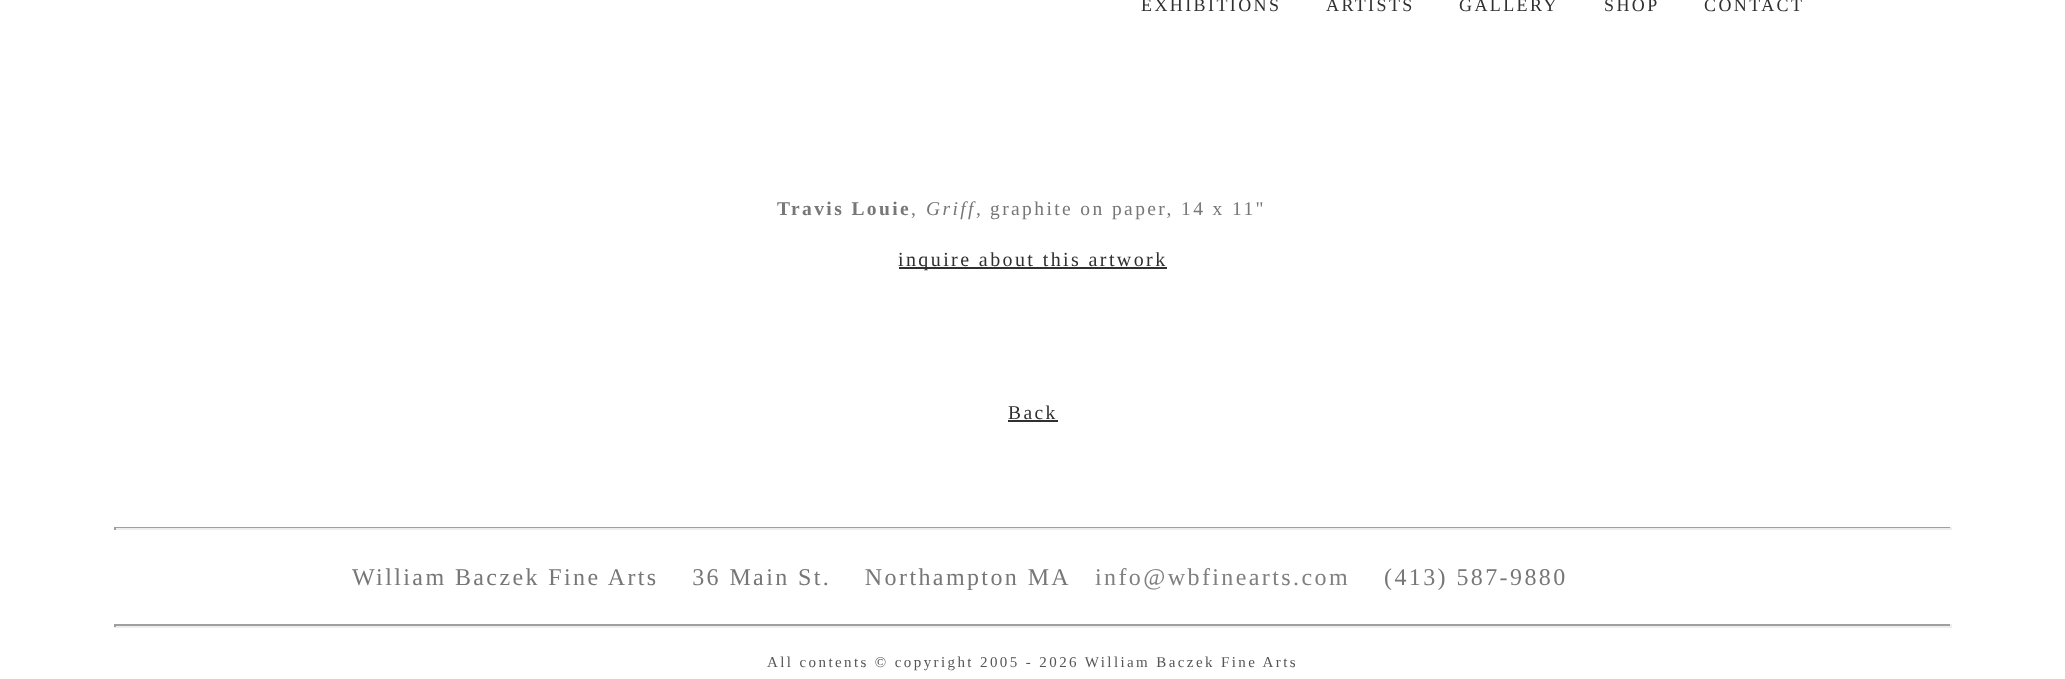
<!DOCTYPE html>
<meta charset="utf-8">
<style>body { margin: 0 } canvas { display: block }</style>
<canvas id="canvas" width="2065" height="679"></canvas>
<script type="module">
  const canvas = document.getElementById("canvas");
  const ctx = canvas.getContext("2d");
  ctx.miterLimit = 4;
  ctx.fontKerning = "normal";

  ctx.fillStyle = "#ffffff";
  ctx.fillRect(0, 0, 2065, 679);
  ctx.letterSpacing = "2.4px";
  ctx.font = "18px Liberation Serif";
  ctx.fillStyle = "#312f2f";
  ctx.fillText("EXHIBITIONS", 1141, 11);
  ctx.fillText("ARTISTS", 1326, 11);
  ctx.fillText("GALLERY", 1459, 11);
  ctx.fillText("SHOP", 1604, 11);
  ctx.fillText("CONTACT", 1704, 11);
  ctx.font = "bold 19.5px Liberation Serif";
  ctx.fillStyle = "#777777";
  ctx.fillText("Travis Louie", 777, 215);
  ctx.font = "19.5px Liberation Serif";
  ctx.fillText(",", 911, 215);
  ctx.font = "italic 19.5px Liberation Serif";
  ctx.fillText("Griff,", 926, 215);
  ctx.font = "19.5px Liberation Serif";
  ctx.fillText("graphite on paper, 14 x 11\"", 990, 215);
  ctx.fillStyle = "#312f2f";
  ctx.fillRect(899, 267, 268, 2);
  ctx.font = "20px Liberation Serif";
  ctx.fillText("inquire about this artwork", 898, 266);
  ctx.font = "19.5px Liberation Serif";
  ctx.fillText("Back", 1008, 419);
  ctx.fillRect(1008, 420, 50, 2);
  ctx.fillStyle = "#9f9f9f";
  ctx.fillRect(114, 527, 1838, 1);
  ctx.fillStyle = "#eeeeee";
  ctx.fillRect(1950, 527, 2, 3);
  ctx.fillRect(114, 528, 1838, 2);
  ctx.fillStyle = "#9f9f9f";
  ctx.fillRect(114, 527, 2, 3);
  ctx.font = "24px Liberation Serif";
  ctx.fillStyle = "#777777";
  ctx.fillText("William Baczek Fine Arts    36 Main St.    Northampton MA", 352, 585);
  ctx.fillStyle = "#808080";
  ctx.fillText("info@wbfinearts.com", 1095, 585);
  ctx.fillStyle = "#777777";
  ctx.fillText("(413) 587-9880", 1384, 585);
  ctx.fillStyle = "#9f9f9f";
  ctx.fillRect(114, 624, 1838, 2);
  ctx.fillStyle = "#eeeeee";
  ctx.fillRect(1950, 624, 2, 3);
  ctx.fillRect(114, 626, 1838, 2);
  ctx.fillStyle = "#9f9f9f";
  ctx.fillRect(114, 624, 2, 3);
  ctx.font = "15px Liberation Serif";
  ctx.fillStyle = "#555555";
  ctx.fillText("All contents © copyright 2005 - 2026 William Baczek Fine Arts", 767, 667);
</script>
